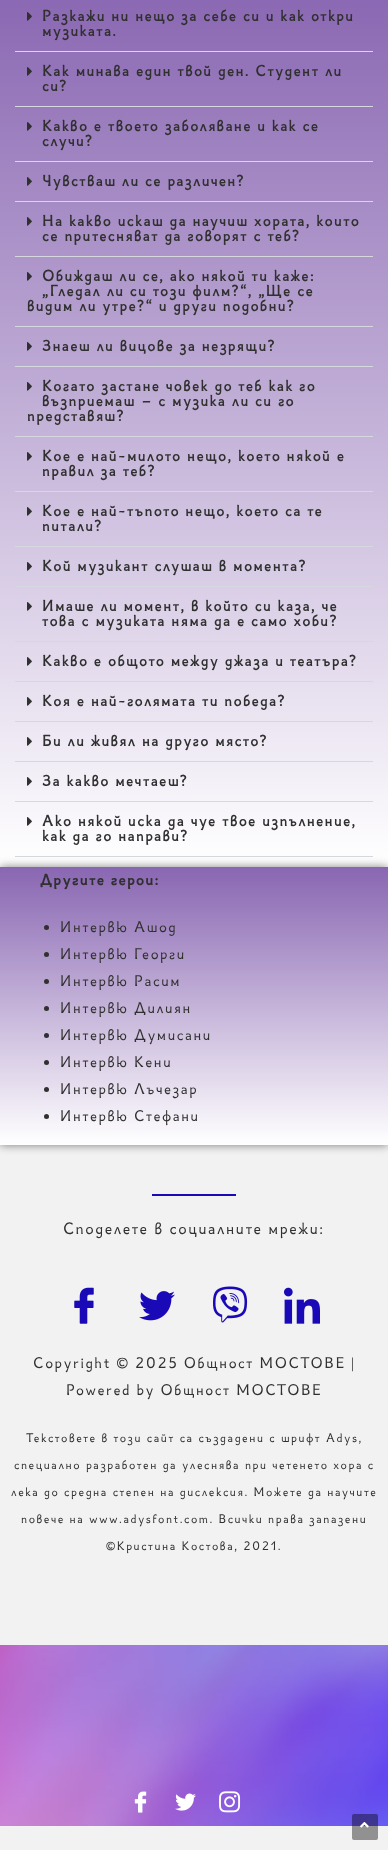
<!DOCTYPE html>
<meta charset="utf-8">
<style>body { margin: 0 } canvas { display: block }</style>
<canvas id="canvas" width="388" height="1850"></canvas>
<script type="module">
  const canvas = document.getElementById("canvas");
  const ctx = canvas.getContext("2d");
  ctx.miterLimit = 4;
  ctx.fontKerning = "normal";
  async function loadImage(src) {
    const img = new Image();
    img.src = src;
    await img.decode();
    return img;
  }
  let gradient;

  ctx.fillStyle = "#f2f2f2";
  ctx.fillRect(0, 0, 388, 1850);
  gradient = ctx.createLinearGradient(194, -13, 194, 867);
  gradient.addColorStop(0, "#8966b2");
  gradient.addColorStop(1, "#ffffff");
  ctx.fillStyle = gradient;
  ctx.fillRect(0, 0, 388, 867);
  ctx.fillStyle = "#d5d8dc";
  ctx.fillRect(15, 51, 358, 1);
  ctx.drawImage(await loadImage("img1.png"), 27, 12, 5, 9);
  ctx.letterSpacing = "1.5px";
  ctx.font = "bold 15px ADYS";
  ctx.fillStyle = "#303030";
  ctx.fillText("Разкажи ни нещо за себе си и как откри", 42, 21);
  ctx.fillText("музиката.", 42, 36);
  ctx.fillStyle = "#d5d8dc";
  ctx.fillRect(15, 106, 358, 1);
  ctx.drawImage(await loadImage("img2.png"), 27, 67, 5, 9);
  ctx.fillStyle = "#303030";
  ctx.fillText("Как минава един твой ден. Студент ли", 42, 76);
  ctx.fillText("си?", 42, 91);
  ctx.fillStyle = "#d5d8dc";
  ctx.fillRect(15, 161, 358, 1);
  ctx.drawImage(await loadImage("img3.png"), 27, 122, 5, 9);
  ctx.fillStyle = "#303030";
  ctx.fillText("Какво е твоето заболяване и как се", 42, 131);
  ctx.fillText("случи?", 42, 146);
  ctx.fillStyle = "#d5d8dc";
  ctx.fillRect(15, 201, 358, 1);
  ctx.drawImage(await loadImage("img4.png"), 27, 177, 5, 9);
  ctx.fillStyle = "#303030";
  ctx.fillText("Чувстваш ли се различен?", 42, 186);
  ctx.fillStyle = "#d5d8dc";
  ctx.fillRect(15, 256, 358, 1);
  ctx.drawImage(await loadImage("img5.png"), 27, 217, 5, 9);
  ctx.fillStyle = "#303030";
  ctx.fillText("На какво искаш да научиш хората, които", 42, 226);
  ctx.fillText("се притесняват да говорят с теб?", 42, 241);
  ctx.fillStyle = "#d5d8dc";
  ctx.fillRect(15, 326, 358, 1);
  ctx.drawImage(await loadImage("img6.png"), 27, 272, 5, 9);
  ctx.fillStyle = "#303030";
  ctx.fillText("Обиждаш ли се, ако някой ти каже:", 42, 281);
  ctx.fillText("„Гледал ли си този филм?“, „Ще се", 42, 296);
  ctx.fillText("видим ли утре?“ и други подобни?", 27, 311);
  ctx.fillStyle = "#d5d8dc";
  ctx.fillRect(15, 366, 358, 1);
  ctx.drawImage(await loadImage("img7.png"), 27, 342, 5, 9);
  ctx.fillStyle = "#303030";
  ctx.fillText("Знаеш ли вицове за незрящи?", 42, 351);
  ctx.fillStyle = "#d5d8dc";
  ctx.fillRect(15, 436, 358, 1);
  ctx.drawImage(await loadImage("img8.png"), 27, 382, 5, 9);
  ctx.fillStyle = "#303030";
  ctx.fillText("Когато застане човек до теб как го", 42, 391);
  ctx.fillText("възприемаш – с музика ли си го", 42, 406);
  ctx.fillText("представяш?", 27, 421);
  ctx.fillStyle = "#d5d8dc";
  ctx.fillRect(15, 491, 358, 1);
  ctx.drawImage(await loadImage("img9.png"), 27, 452, 5, 9);
  ctx.fillStyle = "#303030";
  ctx.fillText("Кое е най-милото нещо, което някой е", 42, 461);
  ctx.fillText("правил за теб?", 42, 476);
  ctx.fillStyle = "#d5d8dc";
  ctx.fillRect(15, 546, 358, 1);
  ctx.drawImage(await loadImage("img10.png"), 27, 507, 5, 9);
  ctx.fillStyle = "#303030";
  ctx.fillText("Кое е най-тъпото нещо, което са те", 42, 516);
  ctx.fillText("питали?", 42, 531);
  ctx.fillStyle = "#d5d8dc";
  ctx.fillRect(15, 586, 358, 1);
  ctx.drawImage(await loadImage("img11.png"), 27, 562, 5, 9);
  ctx.fillStyle = "#303030";
  ctx.fillText("Кой музикант слушаш в момента?", 42, 571);
  ctx.fillStyle = "#d5d8dc";
  ctx.fillRect(15, 641, 358, 1);
  ctx.drawImage(await loadImage("img12.png"), 27, 602, 5, 9);
  ctx.fillStyle = "#303030";
  ctx.fillText("Имаше ли момент, в който си каза, че", 42, 611);
  ctx.fillText("това с музиката няма да е само хоби?", 42, 626);
  ctx.fillStyle = "#d5d8dc";
  ctx.fillRect(15, 681, 358, 1);
  ctx.drawImage(await loadImage("img13.png"), 27, 657, 5, 9);
  ctx.fillStyle = "#303030";
  ctx.fillText("Какво е общото между джаза и театъра?", 42, 666);
  ctx.fillStyle = "#d5d8dc";
  ctx.fillRect(15, 721, 358, 1);
  ctx.drawImage(await loadImage("img14.png"), 27, 697, 5, 9);
  ctx.fillStyle = "#303030";
  ctx.fillText("Коя е най-голямата ти победа?", 42, 706);
  ctx.fillStyle = "#d5d8dc";
  ctx.fillRect(15, 761, 358, 1);
  ctx.drawImage(await loadImage("img15.png"), 27, 737, 5, 9);
  ctx.fillStyle = "#303030";
  ctx.fillText("Би ли живял на друго място?", 42, 746);
  ctx.fillStyle = "#d5d8dc";
  ctx.fillRect(15, 801, 358, 1);
  ctx.drawImage(await loadImage("img16.png"), 27, 777, 5, 9);
  ctx.fillStyle = "#303030";
  ctx.fillText("За какво мечтаеш?", 42, 786);
  ctx.fillStyle = "#d5d8dc";
  ctx.fillRect(15, 856, 358, 1);
  ctx.drawImage(await loadImage("img17.png"), 27, 817, 5, 9);
  ctx.fillStyle = "#303030";
  ctx.fillText("Ако някой иска да чуе твое изпълнение,", 42, 826);
  ctx.fillText("как да го направи?", 42, 841);
  ctx.fillStyle = "rgba(0, 0, 0, 0.5)";
  ctx.filter = "blur(5px)";
  ctx.beginPath();
  ctx.rect(0, 867, 388, 278);
  ctx.fill();
  ctx.filter = "none";
  gradient = ctx.createLinearGradient(194, 867, 194, 1145);
  gradient.addColorStop(0, "#8966b2");
  gradient.addColorStop(1, "#ffffff");
  ctx.fillStyle = gradient;
  ctx.fillRect(0, 867, 388, 278);
  ctx.font = "bold 15px 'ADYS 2'";
  ctx.fillStyle = "#303030";
  ctx.fillText("Другите герои:", 40, 885);
  ctx.beginPath();
  ctx.arc(46.5, 927.5, 2.5, 0, Math.PI * 2);
  ctx.fill();
  ctx.font = "15px ADYS";
  ctx.fillText("Интервю Ашод", 60, 932);
  ctx.beginPath();
  ctx.arc(46.5, 954.5, 2.5, 0, Math.PI * 2);
  ctx.fill();
  ctx.fillText("Интервю Георги", 60, 959);
  ctx.beginPath();
  ctx.arc(46.5, 981.5, 2.5, 0, Math.PI * 2);
  ctx.fill();
  ctx.fillText("Интервю Расим", 60, 986);
  ctx.beginPath();
  ctx.arc(46.5, 1008.5, 2.5, 0, Math.PI * 2);
  ctx.fill();
  ctx.fillText("Интервю Дилиян", 60, 1013);
  ctx.beginPath();
  ctx.arc(46.5, 1035.5, 2.5, 0, Math.PI * 2);
  ctx.fill();
  ctx.fillText("Интервю Думисани", 60, 1040);
  ctx.beginPath();
  ctx.arc(46.5, 1062.5, 2.5, 0, Math.PI * 2);
  ctx.fill();
  ctx.fillText("Интервю Кени", 60, 1067);
  ctx.beginPath();
  ctx.arc(46.5, 1089.5, 2.5, 0, Math.PI * 2);
  ctx.fill();
  ctx.fillText("Интервю Лъчезар", 60, 1094);
  ctx.beginPath();
  ctx.arc(46.5, 1116.5, 2.5, 0, Math.PI * 2);
  ctx.fill();
  ctx.fillText("Интервю Стефани", 60, 1121);
  ctx.fillStyle = "#1909b6";
  ctx.fillRect(152, 1194, 84, 2);
  ctx.font = "16px ADYS";
  ctx.fillStyle = "#303030";
  ctx.fillText("Споделете в социалните мрежи:", 63, 1234);
  ctx.drawImage(await loadImage("img18.png"), 74, 1287, 20, 37);
  ctx.drawImage(await loadImage("img19.png"), 139, 1291, 36, 30);
  ctx.drawImage(await loadImage("img20.png"), 213, 1286, 35, 37);
  ctx.drawImage(await loadImage("img21.png"), 284, 1287, 36, 37);
  ctx.font = "15px ADYS";
  ctx.fillText("Copyright © 2025 Общност МОСТОВЕ", 33, 1368);
  ctx.font = "15px Liberation Serif";
  ctx.fillText("|", 351, 1368);
  ctx.font = "15px ADYS";
  ctx.fillText("Powered by Общност МОСТОВЕ", 66, 1395);
  ctx.font = "12px ADYS";
  ctx.fillText("Текстовете в този сайт са създадени с шрифт Adys,", 26, 1442);
  ctx.fillText("специално разработен да улеснява при четенето хора с", 14, 1469);
  ctx.fillText("лека до средна степен на дислексия. Можете да научите", 11, 1496);
  ctx.fillText("повече на www.adysfont.com. Всички права запазени", 21, 1523);
  ctx.fillText("©Кристина Костова, 2021.", 106, 1550);
  ctx.drawImage(await loadImage("img22.png"), 0, 1645, 388, 181);
  ctx.drawImage(await loadImage("img23.png"), 134, 1791, 13, 22);
  ctx.drawImage(await loadImage("img24.png"), 175, 1793, 21, 18);
  ctx.drawImage(await loadImage("img25.png"), 219, 1791, 22, 22);
  ctx.fillStyle = "rgba(0, 0, 0, 0.4)";
  ctx.beginPath();
  ctx.roundRect(352, 1814, 26, 26, 2);
  ctx.fill();
  ctx.drawImage(await loadImage("img26.png"), 360, 1822, 9, 6);
</script>
